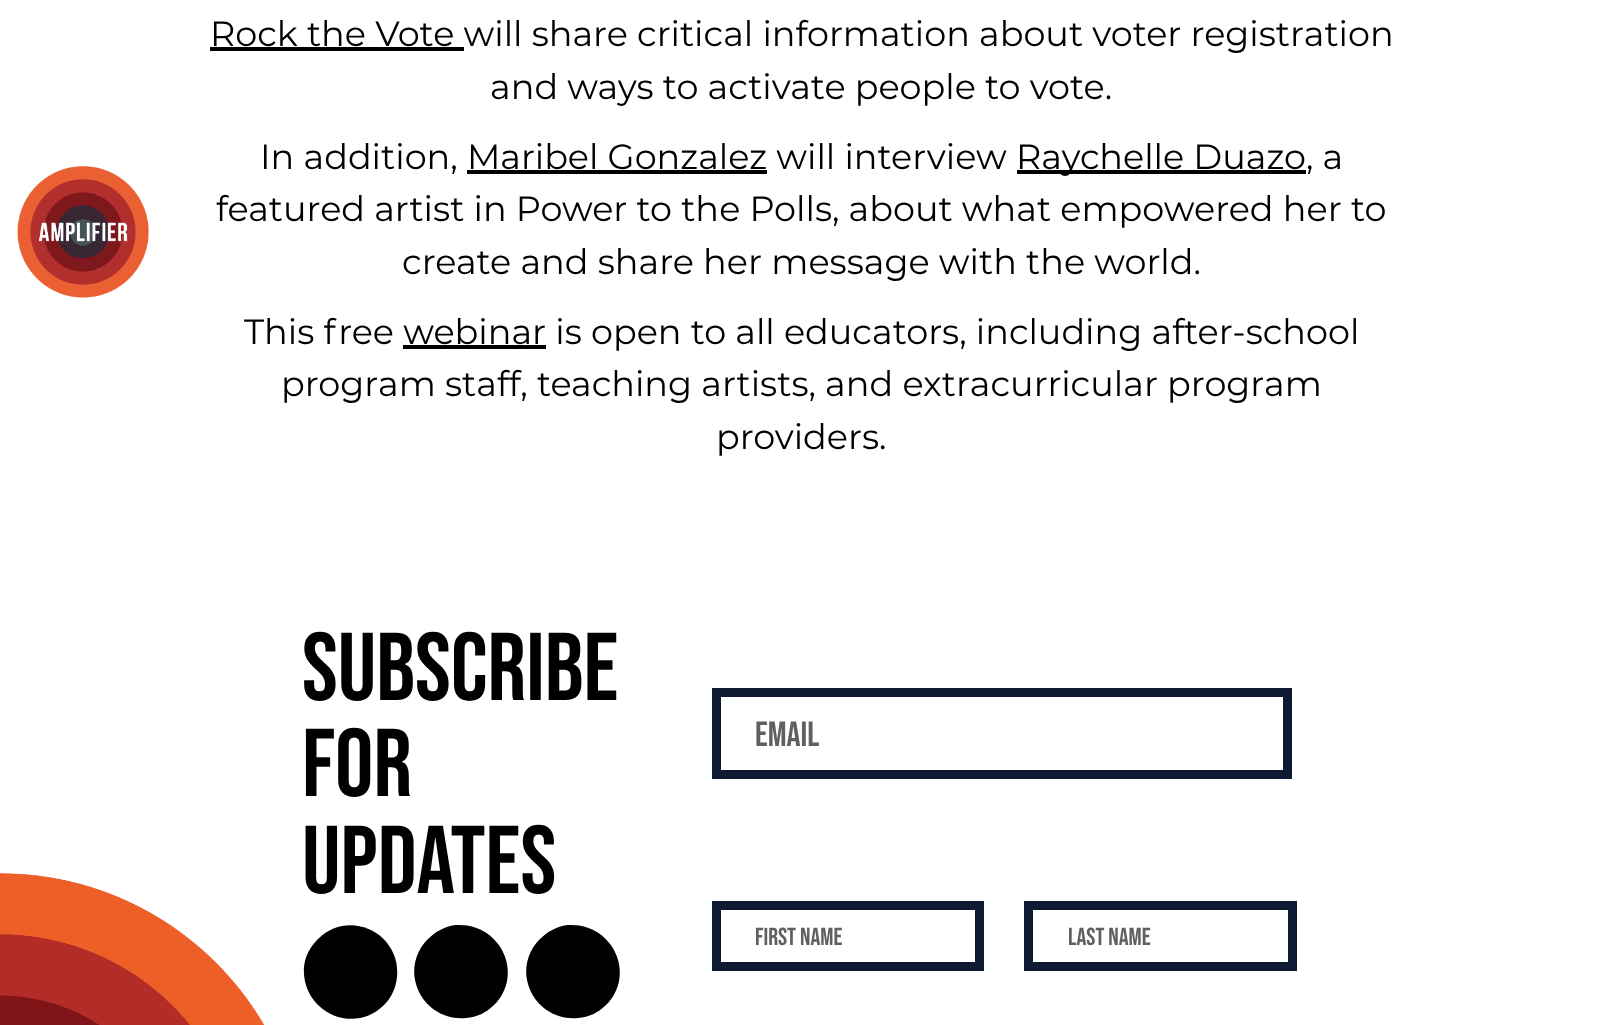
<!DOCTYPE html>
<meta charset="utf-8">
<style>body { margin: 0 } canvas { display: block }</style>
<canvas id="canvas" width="1602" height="1025"></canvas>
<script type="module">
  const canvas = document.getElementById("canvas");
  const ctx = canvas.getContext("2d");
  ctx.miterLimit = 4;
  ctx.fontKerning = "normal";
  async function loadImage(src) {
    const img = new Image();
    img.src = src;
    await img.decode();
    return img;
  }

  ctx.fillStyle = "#ffffff";
  ctx.fillRect(0, 0, 1602, 1025);
  ctx.drawImage(await loadImage("img1.png"), 17, 166, 132, 132);
  ctx.fillStyle = "#000000";
  ctx.fillRect(210, 47, 254, 4);
  ctx.font = "35px Montserrat";
  ctx.fillText("Rock the Vote will share critical information about voter registration", 210, 46);
  ctx.fillText("and ways to activate people to vote.", 490, 99);
  ctx.fillText("In addition, Maribel Gonzalez will interview", 260, 169);
  ctx.fillRect(1017, 170, 289, 4);
  ctx.fillText("Raychelle Duazo", 1016, 169);
  ctx.fillText(", a", 1306, 169);
  ctx.fillRect(467, 170, 300, 4);
  ctx.fillText("featured artist in Power to the Polls, about what empowered her to", 216, 221);
  ctx.fillText("create and share her message with the world.", 402, 274);
  ctx.fillText("This free webinar is open to all educators, including after-school", 244, 344);
  ctx.fillRect(403, 345, 143, 4);
  ctx.fillText("program staff, teaching artists, and extracurricular program", 281, 396);
  ctx.fillText("providers.", 716, 449);
  ctx.drawImage(await loadImage("img2.png"), 0, 873, 264, 152);
  ctx.font = "96px Bebas Neue";
  ctx.fillText("Subscribe", 302, 700);
  ctx.fillText("for", 302, 796);
  ctx.fillText("Updates", 302, 893);
  ctx.beginPath();
  ctx.moveTo(318, 939);
  ctx.bezierCurveTo(349, 908, 401, 933, 397, 977);
  ctx.bezierCurveTo(396, 987, 392, 997, 384, 1005);
  ctx.bezierCurveTo(353, 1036, 301, 1011, 304, 967);
  ctx.bezierCurveTo(305, 956, 310, 947, 318, 939);
  ctx.closePath();
  ctx.fill();
  ctx.beginPath();
  ctx.moveTo(428, 939);
  ctx.bezierCurveTo(436, 931, 446, 926, 456, 925);
  ctx.bezierCurveTo(500, 922, 525, 974, 494, 1005);
  ctx.bezierCurveTo(486, 1013, 477, 1017, 466, 1018);
  ctx.bezierCurveTo(422, 1022, 397, 970, 428, 939);
  ctx.closePath();
  ctx.fill();
  ctx.beginPath();
  ctx.moveTo(540, 939);
  ctx.bezierCurveTo(548, 931, 558, 926, 568, 925);
  ctx.bezierCurveTo(612, 922, 637, 974, 606, 1005);
  ctx.bezierCurveTo(598, 1013, 589, 1017, 578, 1018);
  ctx.bezierCurveTo(534, 1022, 509, 970, 540, 939);
  ctx.closePath();
  ctx.fill();
  ctx.strokeStyle = "#0e1932";
  ctx.lineWidth = 9;
  ctx.strokeRect(716.5, 692.5, 571, 82);
  ctx.font = "35px Bebas Neue";
  ctx.fillStyle = "#606060";
  ctx.fillText("Email", 755, 746);
  ctx.strokeRect(716.5, 905.5, 263, 61);
  ctx.font = "24.5px Bebas Neue";
  ctx.fillText("First Name", 755, 945);
  ctx.strokeRect(1028.5, 905.5, 264, 61);
  ctx.fillText("Last Name", 1068, 945);
</script>
